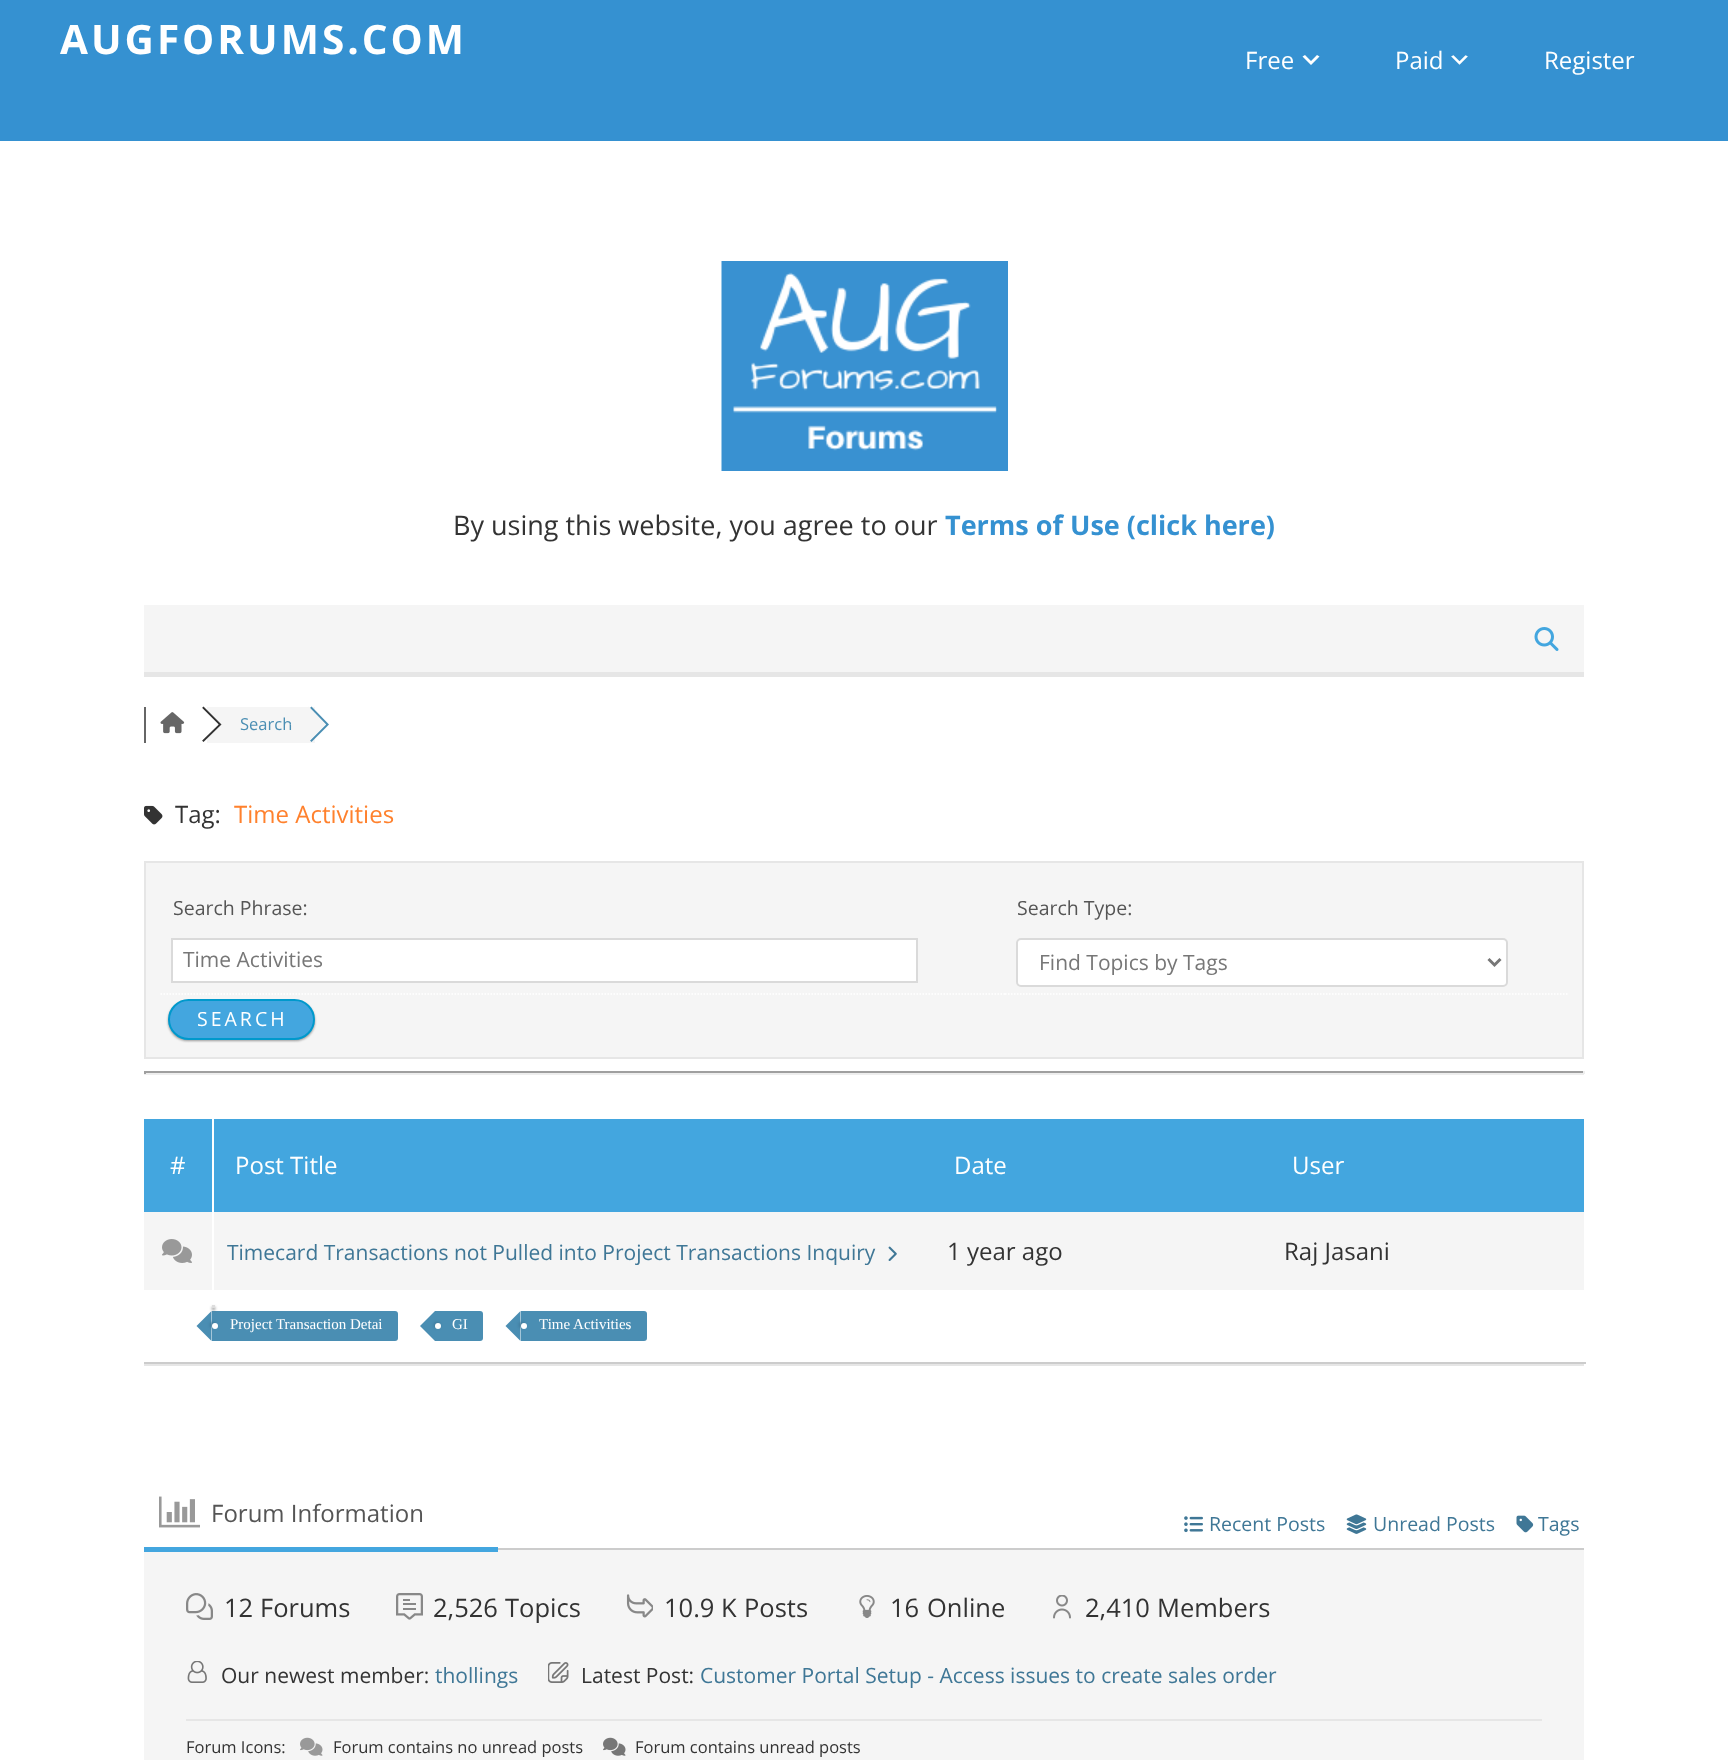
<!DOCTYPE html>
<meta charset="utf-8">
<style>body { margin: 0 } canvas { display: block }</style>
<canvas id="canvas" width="1728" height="1760"></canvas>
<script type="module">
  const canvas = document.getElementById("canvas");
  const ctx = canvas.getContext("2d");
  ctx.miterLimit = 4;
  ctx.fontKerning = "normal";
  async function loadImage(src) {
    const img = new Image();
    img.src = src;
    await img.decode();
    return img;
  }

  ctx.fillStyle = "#3591d1";
  ctx.fillRect(0, 0, 1728, 1760);
  ctx.letterSpacing = "3px";
  ctx.font = "bold 40.5px Open Sans";
  ctx.fillStyle = "#ffffff";
  ctx.fillText("AUGFORUMS.COM", 60, 54);
  ctx.letterSpacing = "0px";
  ctx.font = "24px Open Sans";
  ctx.fillText("Free", 1245, 69);
  ctx.beginPath();
  ctx.moveTo(1305, 55);
  ctx.lineTo(1311, 61);
  ctx.lineTo(1317, 55);
  ctx.lineTo(1319.5, 56.5);
  ctx.lineTo(1311, 65);
  ctx.lineTo(1302.5, 56.5);
  ctx.closePath();
  ctx.fill();
  ctx.fillText("Paid", 1395, 69);
  ctx.drawImage(await loadImage("img1.png"), 1451, 55, 17, 10);
  ctx.fillText("Register", 1544, 69);
  ctx.fillRect(0, 141, 1728, 1619);
  ctx.drawImage(await loadImage("img2.png"), 721, 261, 287, 210);
  ctx.font = "27px Open Sans";
  ctx.fillStyle = "#333333";
  ctx.fillText("By using this website, you agree to our", 453, 535);
  ctx.font = "bold 27px Open Sans";
  ctx.fillStyle = "#3591d1";
  ctx.fillText("Terms of Use (click here)", 945, 535);
  ctx.fillStyle = "#f5f5f5";
  ctx.fillRect(144, 605, 1440, 67);
  ctx.fillStyle = "#e6e6e6";
  ctx.fillRect(144, 672, 1440, 5);
  ctx.drawImage(await loadImage("img3.png"), 1534, 627, 25, 24);
  ctx.fillStyle = "#666666";
  ctx.fillRect(144, 707, 2, 36);
  ctx.drawImage(await loadImage("img4.png"), 160, 712, 25, 22);
  ctx.fillStyle = "#f5f5f5";
  ctx.fillRect(207, 707, 108, 36);
  ctx.fillStyle = "#333333";
  ctx.beginPath();
  ctx.moveTo(203.5, 706.5);
  ctx.lineTo(202, 708);
  ctx.lineTo(218.5, 724.5);
  ctx.lineTo(202, 740.5);
  ctx.lineTo(203.5, 742);
  ctx.lineTo(221.5, 724.5);
  ctx.closePath();
  ctx.fill();
  ctx.fillStyle = "#ffffff";
  ctx.beginPath();
  ctx.moveTo(200.5, 706.5);
  ctx.lineTo(218.5, 724.5);
  ctx.lineTo(200.5, 742);
  ctx.lineTo(183, 724.5);
  ctx.closePath();
  ctx.fill();
  ctx.font = "16.5px Open Sans";
  ctx.fillStyle = "#4a8eb3";
  ctx.fillText("Search", 240, 730);
  ctx.beginPath();
  ctx.moveTo(311.5, 706.5);
  ctx.lineTo(310, 708);
  ctx.lineTo(326, 724.5);
  ctx.lineTo(310, 740.5);
  ctx.lineTo(311.5, 742);
  ctx.lineTo(329, 724.5);
  ctx.closePath();
  ctx.fill();
  ctx.fillStyle = "#f5f5f5";
  ctx.beginPath();
  ctx.moveTo(308.5, 706.5);
  ctx.lineTo(326, 724.5);
  ctx.lineTo(308.5, 742);
  ctx.lineTo(290.5, 724.5);
  ctx.closePath();
  ctx.fill();
  ctx.drawImage(await loadImage("img5.png"), 144, 805, 19, 20);
  ctx.font = "24px Open Sans";
  ctx.fillStyle = "#333333";
  ctx.fillText("Tag:", 175, 823);
  ctx.fillStyle = "#ff812d";
  ctx.fillText("Time Activities", 234, 823);
  ctx.fillStyle = "#f5f5f5";
  ctx.beginPath();
  ctx.rect(145, 862, 1438, 196);
  ctx.fill();
  ctx.strokeStyle = "#e6e6e6";
  ctx.lineWidth = 2;
  ctx.stroke();
  ctx.beginPath();
  ctx.moveTo(160.5, 994);
  ctx.lineTo(1005, 994);
  ctx.strokeStyle = "#ffffff";
  ctx.lineWidth = 1.5;
  ctx.setLineDash([1.5, 1.5]);
  ctx.stroke();
  ctx.font = "19.5px Open Sans";
  ctx.fillStyle = "#555555";
  ctx.fillText("Search Phrase:", 173, 915);
  ctx.fillStyle = "#ffffff";
  ctx.beginPath();
  ctx.rect(172, 939, 745, 43);
  ctx.fill();
  ctx.strokeStyle = "#dadada";
  ctx.lineWidth = 2;
  ctx.setLineDash([]);
  ctx.stroke();
  ctx.font = "21px Open Sans";
  ctx.fillStyle = "#777777";
  ctx.fillText("Time Activities", 183, 967);
  ctx.beginPath();
  ctx.moveTo(1005, 994);
  ctx.lineTo(1567.5, 994);
  ctx.strokeStyle = "#ffffff";
  ctx.lineWidth = 1.5;
  ctx.setLineDash([1.5, 1.5]);
  ctx.stroke();
  ctx.font = "19.5px Open Sans";
  ctx.fillStyle = "#555555";
  ctx.fillText("Search Type:", 1017, 915);
  ctx.fillStyle = "#ffffff";
  ctx.beginPath();
  ctx.roundRect(1017, 939, 490, 47, 4);
  ctx.fill();
  ctx.strokeStyle = "#dadada";
  ctx.lineWidth = 2;
  ctx.setLineDash([]);
  ctx.stroke();
  ctx.beginPath();
  ctx.moveTo(1488.5, 959);
  ctx.lineTo(1494.5, 965);
  ctx.lineTo(1500.5, 959);
  ctx.strokeStyle = "#777777";
  ctx.lineWidth = 3;
  ctx.stroke();
  ctx.font = "21px Open Sans";
  ctx.fillStyle = "#777777";
  ctx.fillText("Find Topics by Tags", 1039, 970);
  ctx.fillStyle = "#999999";
  ctx.filter = "blur(1px)";
  ctx.beginPath();
  ctx.roundRect(168, 1001, 147, 40, 20);
  ctx.fill();
  ctx.filter = "none";
  ctx.fillStyle = "#43a6df";
  ctx.beginPath();
  ctx.roundRect(169, 1000, 145, 39, 19.5);
  ctx.fill();
  ctx.strokeStyle = "#0099cc";
  ctx.lineWidth = 2;
  ctx.stroke();
  ctx.letterSpacing = "3px";
  ctx.font = "19.5px Open Sans";
  ctx.fillStyle = "#ffffff";
  ctx.fillText("SEARCH", 197, 1026);
  ctx.fillStyle = "#9f9f9f";
  ctx.fillRect(144, 1071, 1440, 2);
  ctx.fillStyle = "#eeeeee";
  ctx.fillRect(1583, 1071, 2, 3);
  ctx.fillRect(144, 1073, 1440, 2);
  ctx.fillStyle = "#9f9f9f";
  ctx.fillRect(144, 1071, 2, 3);
  ctx.fillStyle = "#e6e6e6";
  ctx.fillRect(144, 1364, 1440, 2);
  ctx.fillStyle = "#43a6df";
  ctx.fillRect(144, 1119, 1440, 93);
  ctx.letterSpacing = "0px";
  ctx.font = "24px Open Sans";
  ctx.fillStyle = "#ffffff";
  ctx.fillText("#", 170, 1174);
  ctx.fillText("Post Title", 235, 1174);
  ctx.fillText("Date", 954, 1174);
  ctx.fillText("User", 1292, 1174);
  ctx.fillStyle = "#f5f5f5";
  ctx.fillRect(144, 1212, 1440, 78);
  ctx.fillStyle = "#ffffff";
  ctx.fillRect(212, 1118, 2, 172);
  ctx.drawImage(await loadImage("img6.png"), 162, 1239, 30, 24);
  ctx.font = "21px Open Sans";
  ctx.fillStyle = "#3f7796";
  ctx.fillText("Timecard Transactions not Pulled into Project Transactions Inquiry", 227, 1260);
  ctx.drawImage(await loadImage("img7.png"), 888, 1246, 9, 15);
  ctx.font = "24px Open Sans";
  ctx.fillStyle = "#333333";
  ctx.fillText("1 year ago", 947, 1260);
  ctx.fillText("Raj Jasani", 1284, 1260);
  ctx.fillStyle = "#cccccc";
  ctx.fillRect(144, 1362, 1442, 2);
  ctx.fillStyle = "#4a8eb3";
  ctx.beginPath();
  ctx.roundRect(212, 1311, 186, 30, [0, 3, 3, 0]);
  ctx.fill();
  ctx.beginPath();
  ctx.moveTo(211.5, 1311);
  ctx.lineTo(211.5, 1341);
  ctx.lineTo(196.5, 1326);
  ctx.closePath();
  ctx.fill();
  ctx.fillStyle = "#3f7796";
  ctx.filter = "blur(1.5px)";
  ctx.beginPath();
  ctx.roundRect(210, 1322, 6, 6, 3);
  ctx.fill();
  ctx.filter = "none";
  ctx.fillStyle = "#ffffff";
  ctx.beginPath();
  ctx.arc(215, 1326, 3, 0, Math.PI * 2);
  ctx.fill();
  ctx.font = "15px Liberation Serif";
  ctx.fillText("Project Transaction Detai", 230, 1329);
  ctx.fillStyle = "#4a8eb3";
  ctx.beginPath();
  ctx.roundRect(435, 1311, 48, 30, [0, 3, 3, 0]);
  ctx.fill();
  ctx.beginPath();
  ctx.moveTo(435, 1311);
  ctx.lineTo(435, 1341);
  ctx.lineTo(420, 1326);
  ctx.closePath();
  ctx.fill();
  ctx.fillStyle = "#3f7796";
  ctx.filter = "blur(1.5px)";
  ctx.beginPath();
  ctx.roundRect(434, 1322, 6, 6, 3);
  ctx.fill();
  ctx.filter = "none";
  ctx.fillStyle = "#ffffff";
  ctx.beginPath();
  ctx.arc(438, 1326, 3, 0, Math.PI * 2);
  ctx.fill();
  ctx.fillText("GI", 452, 1329);
  ctx.fillStyle = "#4a8eb3";
  ctx.beginPath();
  ctx.roundRect(521, 1311, 126, 30, [0, 3, 3, 0]);
  ctx.fill();
  ctx.beginPath();
  ctx.moveTo(520.5, 1311);
  ctx.lineTo(520.5, 1341);
  ctx.lineTo(505.5, 1326);
  ctx.closePath();
  ctx.fill();
  ctx.fillStyle = "#3f7796";
  ctx.filter = "blur(1.5px)";
  ctx.beginPath();
  ctx.roundRect(519, 1322, 6, 6, 3);
  ctx.fill();
  ctx.filter = "none";
  ctx.fillStyle = "#ffffff";
  ctx.beginPath();
  ctx.arc(524, 1326, 3, 0, Math.PI * 2);
  ctx.fill();
  ctx.fillText("Time Activities", 539, 1329);
  ctx.fillStyle = "#cccccc";
  ctx.fillRect(498, 1548, 1086, 2);
  ctx.fillStyle = "#f5f5f5";
  ctx.fillRect(144, 1550, 1440, 210);
  ctx.fillStyle = "#43a6df";
  ctx.fillRect(144, 1547, 354, 5);
  ctx.drawImage(await loadImage("img8.png"), 159, 1496, 41, 32);
  ctx.font = "24px Open Sans";
  ctx.fillStyle = "#555555";
  ctx.fillText("Forum Information", 211, 1522);
  ctx.drawImage(await loadImage("img9.png"), 1184, 1516, 19, 17);
  ctx.font = "19.5px Open Sans";
  ctx.fillStyle = "#3f7796";
  ctx.fillText("Recent Posts", 1209, 1531);
  ctx.drawImage(await loadImage("img10.png"), 1346, 1514, 21, 20);
  ctx.fillText("Unread Posts", 1373, 1531);
  ctx.drawImage(await loadImage("img11.png"), 1516, 1515, 18, 18);
  ctx.fillText("Tags", 1538, 1531);
  ctx.drawImage(await loadImage("img12.png"), 186, 1593, 27, 27);
  ctx.font = "25.5px Open Sans";
  ctx.fillStyle = "#333333";
  ctx.fillText("12", 224, 1617);
  ctx.fillText("Forums", 260, 1617);
  ctx.drawImage(await loadImage("img13.png"), 396, 1593, 27, 27);
  ctx.fillText("2,526", 433, 1617);
  ctx.fillText("Topics", 505, 1617);
  ctx.drawImage(await loadImage("img14.png"), 626, 1594, 27, 24);
  ctx.fillText("10.9 K", 664, 1617);
  ctx.fillText("Posts", 744, 1617);
  ctx.drawImage(await loadImage("img15.png"), 859, 1595, 16, 23);
  ctx.fillText("16", 890, 1617);
  ctx.fillText("Online", 927, 1617);
  ctx.drawImage(await loadImage("img16.png"), 1053, 1595, 18, 24);
  ctx.fillText("2,410", 1085, 1617);
  ctx.fillText("Members", 1157, 1617);
  ctx.drawImage(await loadImage("img17.png"), 187, 1661, 20, 22);
  ctx.font = "21px Open Sans";
  ctx.fillText("Our newest member:", 221, 1683);
  ctx.fillStyle = "#3f7796";
  ctx.fillText("thollings", 435, 1683);
  ctx.drawImage(await loadImage("img18.png"), 548, 1662, 21, 21);
  ctx.fillStyle = "#333333";
  ctx.fillText("Latest Post:", 581, 1683);
  ctx.fillStyle = "#3f7796";
  ctx.fillText("Customer Portal Setup - Access issues to create sales order", 700, 1683);
  ctx.fillStyle = "#e6e6e6";
  ctx.fillRect(186, 1719, 1356, 2);
  ctx.font = "16.5px Open Sans";
  ctx.fillStyle = "#333333";
  ctx.fillText("Forum Icons:", 186, 1753);
  ctx.drawImage(await loadImage("img19.png"), 300, 1737, 23, 19);
  ctx.fillText("Forum contains no unread posts", 333, 1753);
  ctx.drawImage(await loadImage("img20.png"), 603, 1737, 23, 19);
  ctx.fillText("Forum contains unread posts", 635, 1753);
  ctx.fillStyle = "rgba(100, 100, 100, 0.8)";
  ctx.filter = "blur(1.5px)";
  ctx.beginPath();
  ctx.rect(212, 1307, 3, 3);
  ctx.fill();
  ctx.filter = "none";
  ctx.fillStyle = "#dddddd";
  ctx.fillRect(212, 1305, 3, 3);
</script>
